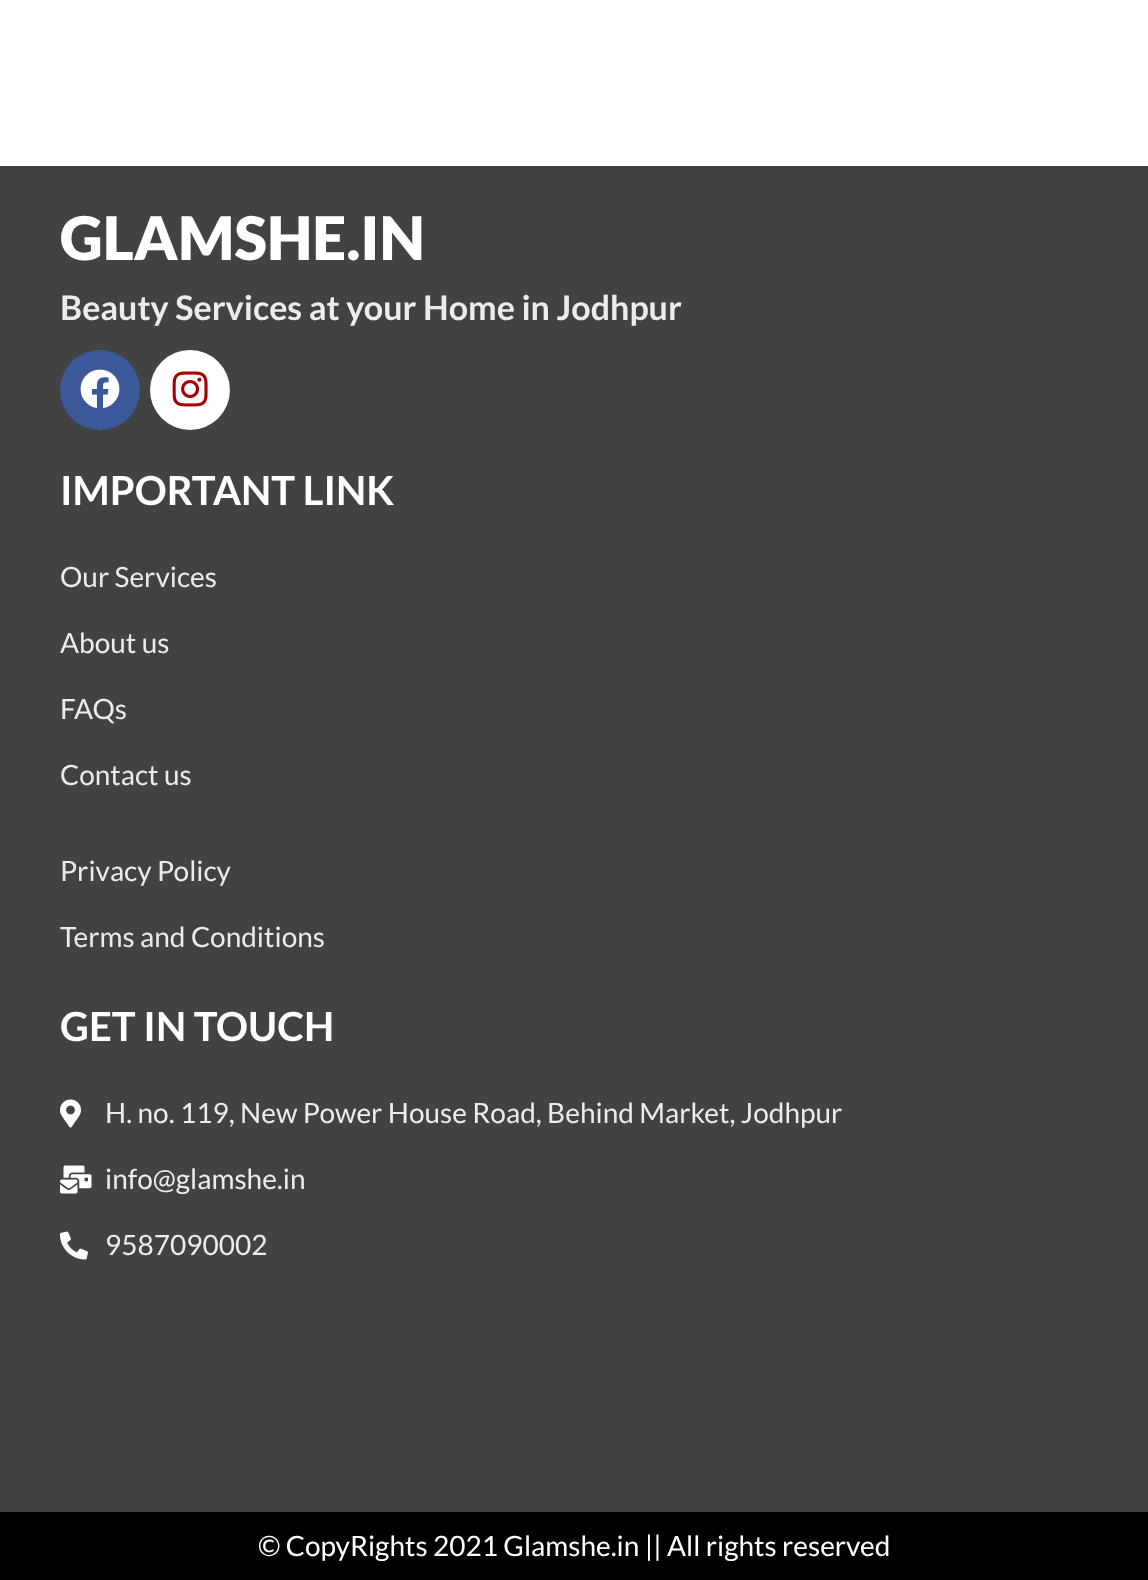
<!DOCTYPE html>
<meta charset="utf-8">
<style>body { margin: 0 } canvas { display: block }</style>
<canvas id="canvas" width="1148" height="1580"></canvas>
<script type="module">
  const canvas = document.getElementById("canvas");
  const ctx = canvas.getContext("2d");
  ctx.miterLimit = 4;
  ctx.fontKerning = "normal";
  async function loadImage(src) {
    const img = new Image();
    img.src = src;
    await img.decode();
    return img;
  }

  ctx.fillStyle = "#ffffff";
  ctx.fillRect(0, 0, 1148, 1580);
  ctx.fillStyle = "#424242";
  ctx.fillRect(0, 166, 1148, 1346);
  ctx.font = "900 60px Lato";
  ctx.fillStyle = "#ffffff";
  ctx.fillText("GLAMSHE.IN", 60, 260);
  ctx.font = "bold 34px Lato";
  ctx.fillStyle = "#ececec";
  ctx.fillText("Beauty Services at your Home in Jodhpur", 60, 320);
  ctx.fillStyle = "#3b5998";
  ctx.beginPath();
  ctx.arc(100, 390, 40, 0, Math.PI * 2);
  ctx.fill();
  ctx.drawImage(await loadImage("img1.png"), 80, 369, 40, 40);
  ctx.fillStyle = "#ffffff";
  ctx.beginPath();
  ctx.arc(190, 390, 40, 0, Math.PI * 2);
  ctx.fill();
  ctx.drawImage(await loadImage("img2.png"), 172, 371, 36, 36);
  ctx.font = "bold 40px Lato";
  ctx.fillText("IMPORTANT LINK", 60, 505);
  ctx.font = "28px Lato";
  ctx.fillStyle = "#ececec";
  ctx.fillText("Our Services", 60, 587);
  ctx.fillText("About us", 60, 653);
  ctx.fillText("FAQs", 60, 719);
  ctx.fillText("Contact us", 60, 785);
  ctx.fillText("Privacy Policy", 60, 881);
  ctx.fillText("Terms and Conditions", 60, 947);
  ctx.font = "bold 40px Lato";
  ctx.fillStyle = "#ffffff";
  ctx.fillText("GET IN TOUCH", 60, 1041);
  ctx.drawImage(await loadImage("img3.png"), 60, 1099, 21, 29);
  ctx.font = "28px Lato";
  ctx.fillStyle = "#ececec";
  ctx.fillText("H. no. 119, New Power House Road, Behind Market, Jodhpur", 105, 1123);
  ctx.drawImage(await loadImage("img4.png"), 60, 1165, 32, 29);
  ctx.fillText("info@glamshe.in", 105, 1189);
  ctx.drawImage(await loadImage("img5.png"), 60, 1231, 28, 29);
  ctx.fillText("9587090002", 105, 1255);
  ctx.fillStyle = "#000000";
  ctx.fillRect(0, 1512, 1148, 68);
  ctx.fillStyle = "#ffffff";
  ctx.fillText("© CopyRights 2021 Glamshe.in || All rights reserved", 258, 1556);
</script>
